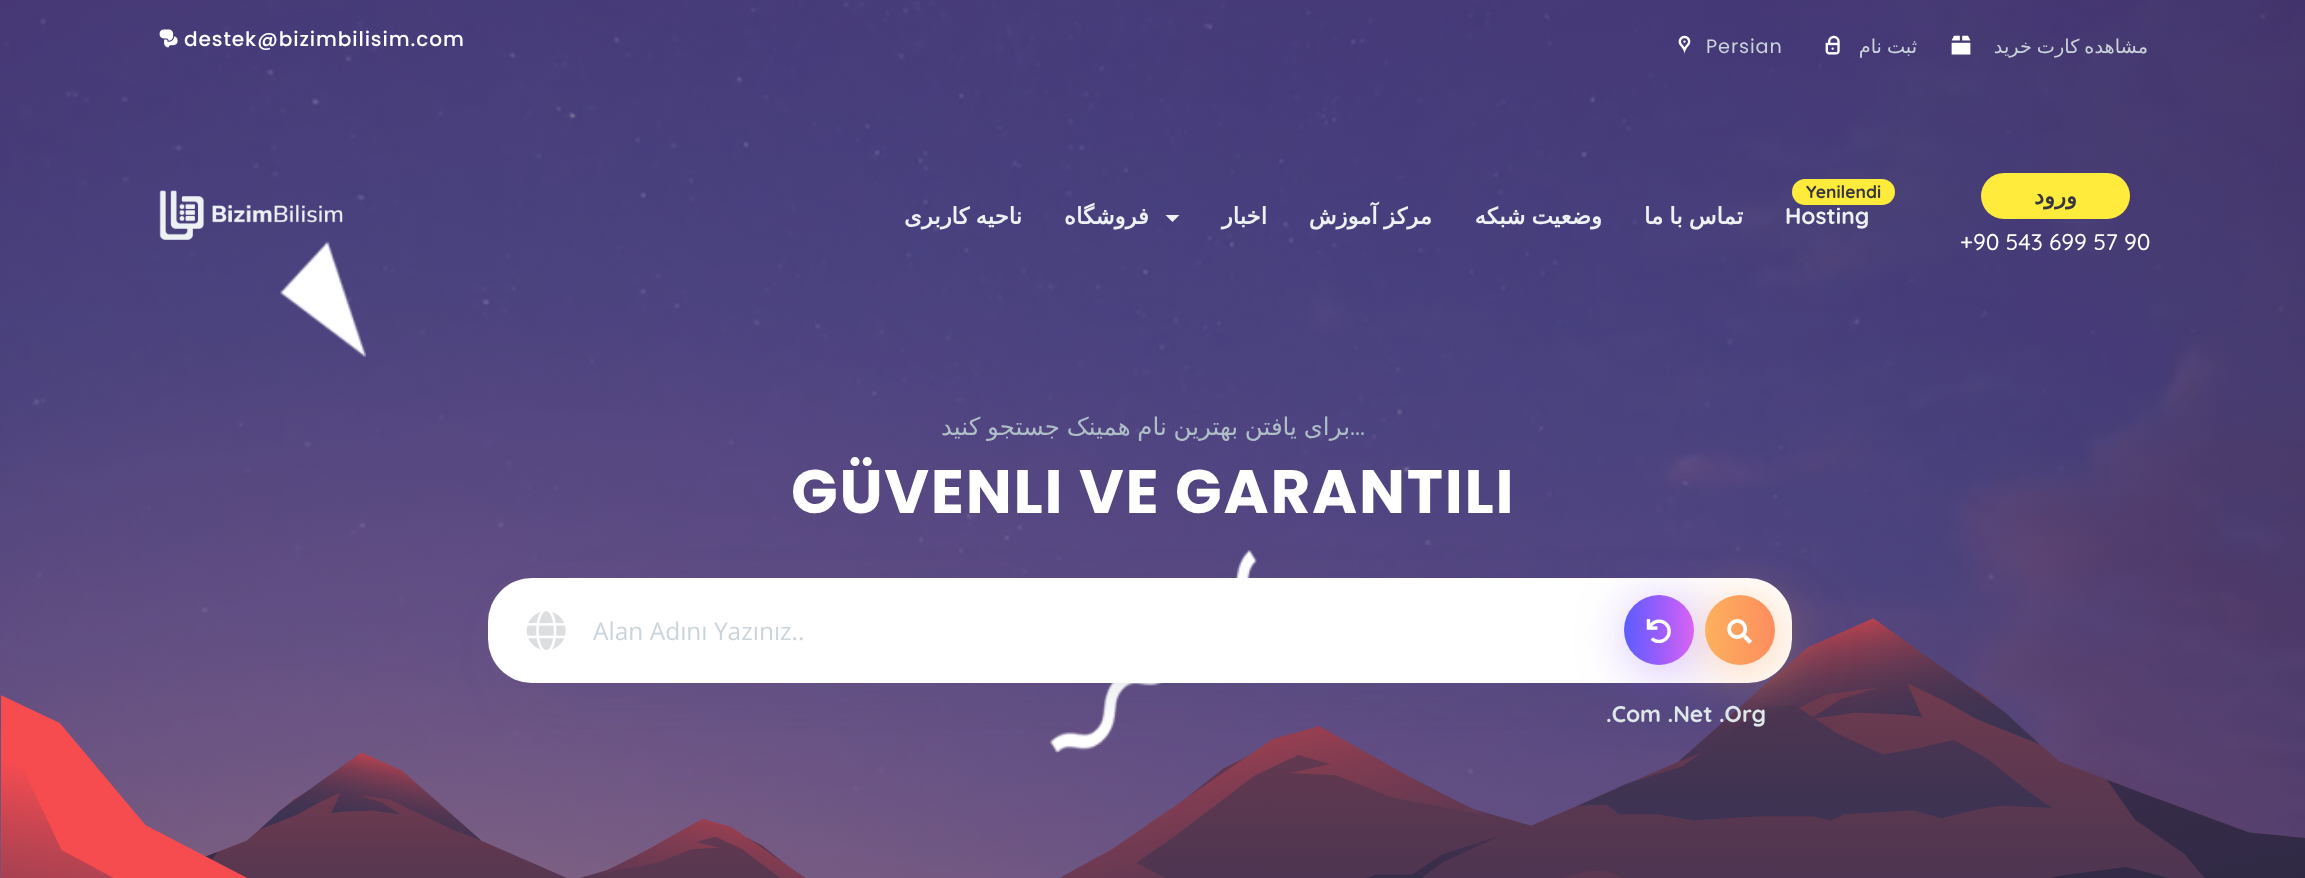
<!DOCTYPE html>
<meta charset="utf-8">
<style>body { margin: 0 } canvas { display: block }</style>
<canvas id="canvas" width="2305" height="878"></canvas>
<script type="module">
  const canvas = document.getElementById("canvas");
  const ctx = canvas.getContext("2d");
  ctx.miterLimit = 4;
  ctx.fontKerning = "normal";
  async function loadImage(src) {
    const img = new Image();
    img.src = src;
    await img.decode();
    return img;
  }
  let gradient;

  ctx.fillStyle = "#ffffff";
  ctx.fillRect(0, 0, 2305, 878);
  ctx.drawImage(await loadImage("img5.png"), 1941, 594, 145, 115);
  ctx.drawImage(await loadImage("img2.png"), 75, 65, 2169, 764);
  ctx.drawImage(await loadImage("img1.png"), 0, 0, 2305, 878);
  gradient = ctx.createLinearGradient(768, -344, 1538, 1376);
  gradient.addColorStop(0, "rgba(78, 26, 45, 0.5)");
  gradient.addColorStop(1, "rgba(67, 7, 23, 0.5)");
  ctx.fillStyle = gradient;
  ctx.fillRect(0, 0, 2305, 878);
  ctx.drawImage(await loadImage("img3.png"), 280, 241, 86, 116);
  ctx.drawImage(await loadImage("img6.png"), 0, 618, 2305, 260);
  ctx.drawImage(await loadImage("img4.png"), 1050, 550, 207, 204);
  ctx.drawImage(await loadImage("img7.png"), 159, 29, 19, 19);
  ctx.letterSpacing = "0.9px";
  ctx.font = "500 20.1px Poppins";
  ctx.fillStyle = "#ffffff";
  ctx.fillText("destek@bizimbilisim.com", 184, 46);
  ctx.drawImage(await loadImage("img8.png"), 1678, 35, 13, 20);
  ctx.font = "19.25px Poppins";
  ctx.fillStyle = "#cad4da";
  ctx.fillText("Persian", 1706, 53);
  ctx.drawImage(await loadImage("img9.png"), 1825, 35, 15, 20);
  ctx.wordSpacing = "-2px";
  ctx.direction = "rtl";
  ctx.font = "19.25px DejaVu Sans";
  ctx.fillText("ثبت نام", 1917, 53);
  ctx.drawImage(await loadImage("img10.png"), 1951, 35, 20, 20);
  ctx.fillText("مشاهده کارت خرید", 2148, 53);
  ctx.drawImage(await loadImage("img11.png"), 159, 190, 184, 50);
  ctx.letterSpacing = "0px";
  ctx.wordSpacing = "-1px";
  ctx.font = "bold 22.75px DejaVu Sans";
  ctx.fillStyle = "#edf1f3";
  ctx.fillText("ناحیه کاربری", 1022, 224);
  ctx.wordSpacing = "0px";
  ctx.fillText("فروشگاه", 1149, 224);
  ctx.beginPath();
  ctx.moveTo(1165.5, 215);
  ctx.lineTo(1179.5, 215);
  ctx.lineTo(1172.5, 222);
  ctx.closePath();
  ctx.fill();
  ctx.fillText("اخبار", 1267, 224);
  ctx.wordSpacing = "-1px";
  ctx.fillText("مرکز آموزش", 1432, 224);
  ctx.fillText("وضعیت شبکه", 1602, 224);
  ctx.fillText("تماس با ما", 1743, 224);
  ctx.fillStyle = "#ffeb3b";
  ctx.beginPath();
  ctx.roundRect(1792, 179, 103, 26, 13);
  ctx.fill();
  ctx.wordSpacing = "0px";
  ctx.direction = "ltr";
  ctx.font = "bold 17.5px Quicksand";
  ctx.fillStyle = "#363542";
  ctx.fillText("Yenilendi", 1806, 198);
  ctx.font = "bold 22.75px Quicksand";
  ctx.fillStyle = "#edf1f3";
  ctx.fillText("Hosting", 1785, 224);
  ctx.fillStyle = "#ffeb3b";
  ctx.beginPath();
  ctx.roundRect(1981, 173, 149, 46, 23);
  ctx.fill();
  ctx.direction = "rtl";
  ctx.font = "bold 22.75px DejaVu Sans";
  ctx.fillStyle = "#363542";
  ctx.fillText("ورود", 2077, 204);
  ctx.direction = "ltr";
  ctx.font = "500 22.75px Quicksand";
  ctx.fillStyle = "#ffffff";
  ctx.fillText("+90 543 699 57 90", 1960, 250);
  ctx.wordSpacing = "-1px";
  ctx.direction = "rtl";
  ctx.font = "24.5px DejaVu Sans";
  ctx.fillStyle = "#aebfc7";
  ctx.fillText("برای یافتن بهترین نام همینک جستجو کنید", 1350, 435);
  ctx.wordSpacing = "0px";
  ctx.direction = "ltr";
  ctx.font = "500 24.5px Quicksand";
  ctx.fillText("...", 1350, 435);
  ctx.letterSpacing = "1.75px";
  ctx.font = "bold 61.25px Poppins";
  ctx.fillStyle = "#ffffff";
  ctx.fillText("GÜVENLI VE GARANTILI", 791, 513);
  ctx.save();
  ctx.beginPath();
  ctx.rect(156, 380, 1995, 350);
  ctx.clip();
  ctx.fillStyle = "rgba(77, 77, 119, 0.1)";
  ctx.filter = "blur(26px)";
  ctx.beginPath();
  ctx.roundRect(509, 599, 1304, 105, 44);
  ctx.fill();
  ctx.filter = "none";
  ctx.restore();
  ctx.beginPath();
  ctx.roundRect(488, 578, 1304, 105, 44);
  ctx.fill();
  ctx.drawImage(await loadImage("img12.png"), 526, 611, 40, 39);
  ctx.letterSpacing = "0px";
  ctx.font = "24.5px Open Sans";
  ctx.fillStyle = "#cad4da";
  ctx.fillText("Alan Adını Yazınız..", 593, 640);
  ctx.fillStyle = "rgba(149, 94, 253, 0.45)";
  ctx.filter = "blur(27px)";
  ctx.beginPath();
  ctx.roundRect(1629, 602, 70, 70, 35);
  ctx.fill();
  ctx.filter = "none";
  gradient = ctx.createLinearGradient(1624, 630, 1694, 630);
  gradient.addColorStop(0, "#5c5cfd");
  gradient.addColorStop(1, "#d65ffd");
  ctx.fillStyle = gradient;
  ctx.beginPath();
  ctx.arc(1659, 630, 35, 0, Math.PI * 2);
  ctx.fill();
  ctx.drawImage(await loadImage("img13.png"), 1646, 619, 25, 25);
  ctx.fillStyle = "rgba(253, 165, 93, 0.54)";
  ctx.filter = "blur(27px)";
  ctx.beginPath();
  ctx.roundRect(1710, 602, 70, 70, 35);
  ctx.fill();
  ctx.filter = "none";
  gradient = ctx.createLinearGradient(1705, 630, 1775, 630);
  gradient.addColorStop(0, "#fdb05c");
  gradient.addColorStop(1, "#fd8d5f");
  ctx.fillStyle = gradient;
  ctx.beginPath();
  ctx.arc(1740, 630, 35, 0, Math.PI * 2);
  ctx.fill();
  ctx.drawImage(await loadImage("img14.png"), 1727, 619, 25, 25);
  ctx.font = "bold 22.75px Quicksand";
  ctx.fillStyle = "#dee7ea";
  ctx.fillText(".Com .Net .Org", 1606, 722);
</script>
